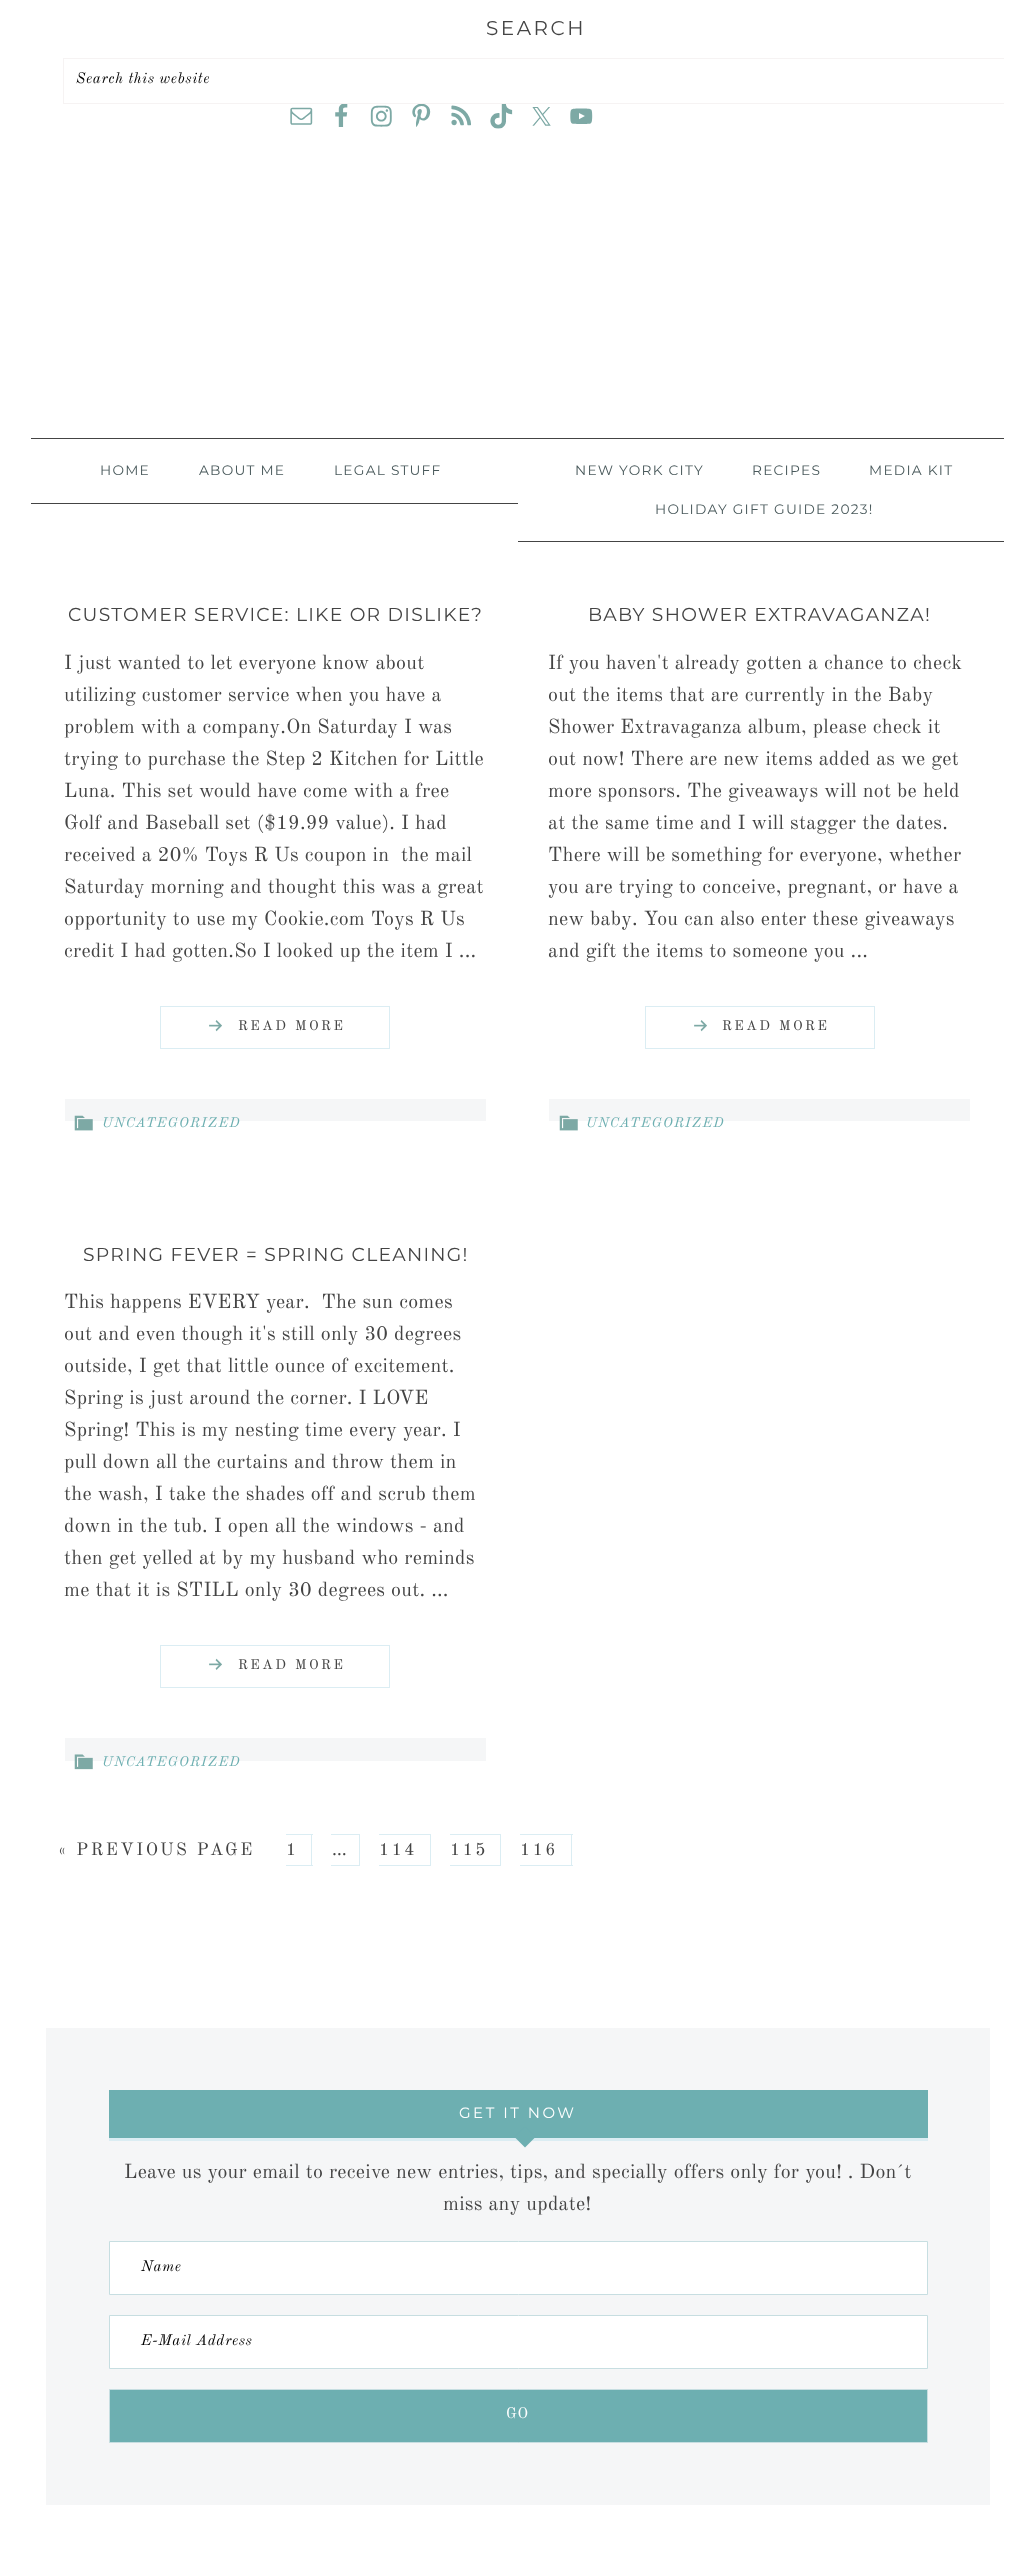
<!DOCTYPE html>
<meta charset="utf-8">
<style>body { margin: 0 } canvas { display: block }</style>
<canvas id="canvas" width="1034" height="2561"></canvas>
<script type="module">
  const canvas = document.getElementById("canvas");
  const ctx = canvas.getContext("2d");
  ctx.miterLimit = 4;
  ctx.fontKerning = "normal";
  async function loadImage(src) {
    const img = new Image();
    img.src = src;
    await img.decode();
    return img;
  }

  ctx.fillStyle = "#ffffff";
  ctx.fillRect(0, 0, 1034, 2561);
  ctx.letterSpacing = "2.5px";
  ctx.font = "20px Montserrat";
  ctx.fillStyle = "#444444";
  ctx.fillText("SEARCH", 486, 35);
  ctx.save();
  ctx.beginPath();
  ctx.rect(31, 0, 973, 168);
  ctx.clip();
  ctx.strokeStyle = "#f6f3f3";
  ctx.strokeRect(63.5, 58.5, 946, 45);
  ctx.restore();
  ctx.letterSpacing = "0.6px";
  ctx.font = "italic 15px Old Standard TT";
  ctx.fillStyle = "#000000";
  ctx.fillText("Search this website", 76, 83);
  ctx.drawImage(await loadImage("img1.png"), 290, 107, 23, 18);
  ctx.drawImage(await loadImage("img2.png"), 335, 104, 13, 23);
  ctx.drawImage(await loadImage("img3.png"), 370, 105, 22, 22);
  ctx.drawImage(await loadImage("img4.png"), 412, 104, 19, 23);
  ctx.drawImage(await loadImage("img5.png"), 451, 105, 20, 21);
  ctx.drawImage(await loadImage("img6.png"), 490, 104, 23, 25);
  ctx.drawImage(await loadImage("img7.png"), 532, 107, 19, 19);
  ctx.drawImage(await loadImage("img8.png"), 570, 108, 23, 16);
  ctx.fillStyle = "#444444";
  ctx.fillRect(31, 438, 973, 1);
  ctx.fillRect(31, 503, 487, 1);
  ctx.letterSpacing = "1.25px";
  ctx.font = "13.75px Montserrat";
  ctx.fillStyle = "#49595b";
  ctx.fillText("HOME", 100, 475);
  ctx.fillText("ABOUT ME", 199, 475);
  ctx.fillText("LEGAL STUFF", 334, 475);
  ctx.fillStyle = "#444444";
  ctx.fillRect(518, 541, 486, 1);
  ctx.fillStyle = "#49595b";
  ctx.fillText("NEW YORK CITY", 575, 475);
  ctx.fillText("RECIPES", 752, 475);
  ctx.fillText("MEDIA KIT", 869, 475);
  ctx.fillText("HOLIDAY GIFT GUIDE 2023!", 655, 514);
  ctx.font = "18.75px Montserrat";
  ctx.fillStyle = "#444444";
  ctx.fillText("CUSTOMER SERVICE: LIKE OR DISLIKE?", 68, 621);
  ctx.letterSpacing = "0.25px";
  ctx.font = "20px Old Standard TT";
  ctx.fillText("I just wanted to let everyone know about", 64, 669);
  ctx.fillText("utilizing customer service when you have a", 64, 701);
  ctx.fillText("problem with a company.On Saturday I was", 64, 733);
  ctx.fillText("trying to purchase the Step 2 Kitchen for Little", 64, 765);
  ctx.fillText("Luna. This set would have come with a free", 64, 797);
  ctx.fillText("Golf and Baseball set ($19.99 value). I had", 64, 829);
  ctx.fillText("received a 20% Toys R Us coupon in  the mail", 64, 861);
  ctx.fillText("Saturday morning and thought this was a great", 64, 893);
  ctx.fillText("opportunity to use my Cookie.com Toys R Us", 64, 925);
  ctx.fillText("credit I had gotten.So I looked up the item I ...", 64, 957);
  ctx.strokeStyle = "#dbedf3";
  ctx.strokeRect(160.5, 1006.5, 229, 42);
  ctx.drawImage(await loadImage("img9.png"), 209, 1020, 13, 12);
  ctx.letterSpacing = "2.5px";
  ctx.font = "13.75px Old Standard TT";
  ctx.fillText("READ MORE", 238, 1030);
  ctx.fillStyle = "#f5f6f7";
  ctx.fillRect(65, 1099, 421, 22);
  ctx.drawImage(await loadImage("img10.png"), 74, 1115, 19, 16);
  ctx.letterSpacing = "1.25px";
  ctx.font = "italic 13.75px Old Standard TT";
  ctx.fillStyle = "#6dafb1";
  ctx.fillText("UNCATEGORIZED", 102, 1127);
  ctx.font = "18.75px Montserrat";
  ctx.fillStyle = "#444444";
  ctx.fillText("BABY SHOWER EXTRAVAGANZA!", 588, 621);
  ctx.letterSpacing = "0.25px";
  ctx.font = "20px Old Standard TT";
  ctx.fillText("If you haven't already gotten a chance to check", 548, 669);
  ctx.fillText("out the items that are currently in the Baby", 548, 701);
  ctx.fillText("Shower Extravaganza album, please check it", 548, 733);
  ctx.fillText("out now! There are new items added as we get", 548, 765);
  ctx.fillText("more sponsors. The giveaways will not be held", 548, 797);
  ctx.fillText("at the same time and I will stagger the dates.", 548, 829);
  ctx.fillText("There will be something for everyone, whether", 548, 861);
  ctx.fillText("you are trying to conceive, pregnant, or have a", 548, 893);
  ctx.fillText("new baby. You can also enter these giveaways", 548, 925);
  ctx.fillText("and gift the items to someone you ...", 548, 957);
  ctx.strokeRect(645.5, 1006.5, 229, 42);
  ctx.drawImage(await loadImage("img9.png"), 694, 1020, 13, 12);
  ctx.letterSpacing = "2.5px";
  ctx.font = "13.75px Old Standard TT";
  ctx.fillText("READ MORE", 722, 1030);
  ctx.fillStyle = "#f5f6f7";
  ctx.fillRect(549, 1099, 421, 22);
  ctx.drawImage(await loadImage("img10.png"), 559, 1115, 19, 16);
  ctx.letterSpacing = "1.25px";
  ctx.font = "italic 13.75px Old Standard TT";
  ctx.fillStyle = "#6dafb1";
  ctx.fillText("UNCATEGORIZED", 586, 1127);
  ctx.font = "18.75px Montserrat";
  ctx.fillStyle = "#444444";
  ctx.fillText("SPRING FEVER = SPRING CLEANING!", 83, 1261);
  ctx.letterSpacing = "0.25px";
  ctx.font = "20px Old Standard TT";
  ctx.fillText("This happens EVERY year.  The sun comes", 64, 1308);
  ctx.fillText("out and even though it's still only 30 degrees", 64, 1340);
  ctx.fillText("outside, I get that little ounce of excitement.", 64, 1372);
  ctx.fillText("Spring is just around the corner. I LOVE", 64, 1404);
  ctx.fillText("Spring! This is my nesting time every year. I", 64, 1436);
  ctx.fillText("pull down all the curtains and throw them in", 64, 1468);
  ctx.fillText("the wash, I take the shades off and scrub them", 64, 1500);
  ctx.fillText("down in the tub. I open all the windows - and", 64, 1532);
  ctx.fillText("then get yelled at by my husband who reminds", 64, 1564);
  ctx.fillText("me that it is STILL only 30 degrees out. ...", 64, 1596);
  ctx.strokeRect(160.5, 1645.5, 229, 42);
  ctx.drawImage(await loadImage("img11.png"), 209, 1658, 13, 12);
  ctx.letterSpacing = "2.5px";
  ctx.font = "13.75px Old Standard TT";
  ctx.fillText("READ MORE", 238, 1669);
  ctx.fillStyle = "#f5f6f7";
  ctx.fillRect(65, 1738, 421, 23);
  ctx.drawImage(await loadImage("img12.png"), 74, 1754, 19, 16);
  ctx.letterSpacing = "1.25px";
  ctx.font = "italic 13.75px Old Standard TT";
  ctx.fillStyle = "#6dafb1";
  ctx.fillText("UNCATEGORIZED", 102, 1766);
  ctx.letterSpacing = "2.5px";
  ctx.font = "17.5px Old Standard TT";
  ctx.fillStyle = "#444444";
  ctx.fillText("« PREVIOUS PAGE", 58, 1855);
  ctx.fillText("1", 286, 1855);
  ctx.fillStyle = "#dbedf3";
  ctx.fillRect(286, 1834, 27, 1);
  ctx.fillRect(311, 1834, 1, 32);
  ctx.fillRect(286, 1865, 27, 1);
  ctx.letterSpacing = "0.25px";
  ctx.fillStyle = "#444444";
  ctx.fillText("…", 332, 1855);
  ctx.fillStyle = "#dbedf3";
  ctx.fillRect(331, 1834, 29, 1);
  ctx.fillRect(359, 1834, 1, 32);
  ctx.fillRect(331, 1865, 29, 1);
  ctx.letterSpacing = "2.5px";
  ctx.fillStyle = "#444444";
  ctx.fillText("114", 379, 1855);
  ctx.fillStyle = "#dbedf3";
  ctx.fillRect(379, 1834, 52, 1);
  ctx.fillRect(430, 1834, 1, 32);
  ctx.fillRect(379, 1865, 52, 1);
  ctx.fillStyle = "#444444";
  ctx.fillText("115", 450, 1855);
  ctx.fillStyle = "#dbedf3";
  ctx.fillRect(450, 1834, 51, 1);
  ctx.fillRect(500, 1834, 1, 32);
  ctx.fillRect(450, 1865, 51, 1);
  ctx.fillStyle = "#444444";
  ctx.fillText("116", 520, 1855);
  ctx.fillStyle = "#dbedf3";
  ctx.fillRect(520, 1834, 53, 1);
  ctx.fillRect(571, 1834, 1, 32);
  ctx.fillRect(520, 1865, 53, 1);
  ctx.fillStyle = "#f5f6f7";
  ctx.fillRect(46, 2028, 944, 477);
  ctx.fillStyle = "#6dafb1";
  ctx.fillRect(109, 2090, 819, 48);
  ctx.fillStyle = "#dbedf3";
  ctx.fillRect(109, 2138, 819, 3);
  ctx.font = "15px Montserrat";
  ctx.fillStyle = "#ffffff";
  ctx.fillText("GET IT NOW", 459, 2118);
  ctx.fillStyle = "#6dafb1";
  ctx.beginPath();
  ctx.moveTo(525, 2126.5);
  ctx.lineTo(535.5, 2137);
  ctx.lineTo(525, 2147.5);
  ctx.lineTo(514.5, 2137);
  ctx.closePath();
  ctx.fill();
  ctx.letterSpacing = "0.25px";
  ctx.font = "20px Old Standard TT";
  ctx.fillStyle = "#444444";
  ctx.fillText("Leave us your email to receive new entries, tips, and specially offers only for you! . Don´t", 124, 2178);
  ctx.fillText("miss any update!", 443, 2210);
  ctx.fillStyle = "#ffffff";
  ctx.beginPath();
  ctx.rect(109.5, 2241.5, 818, 53);
  ctx.fill();
  ctx.strokeStyle = "#c7dee1";
  ctx.stroke();
  ctx.letterSpacing = "0.6px";
  ctx.font = "italic 15px Old Standard TT";
  ctx.fillStyle = "#000000";
  ctx.fillText("Name", 141, 2271);
  ctx.fillStyle = "#ffffff";
  ctx.beginPath();
  ctx.rect(109.5, 2315.5, 818, 53);
  ctx.fill();
  ctx.stroke();
  ctx.fillStyle = "#000000";
  ctx.fillText("E-Mail Address", 141, 2345);
  ctx.fillStyle = "#6dafb1";
  ctx.beginPath();
  ctx.rect(109.5, 2389.5, 818, 53);
  ctx.fill();
  ctx.stroke();
  ctx.font = "15px Old Standard TT";
  ctx.fillStyle = "#ffffff";
  ctx.fillText("GO", 506, 2418);
</script>
